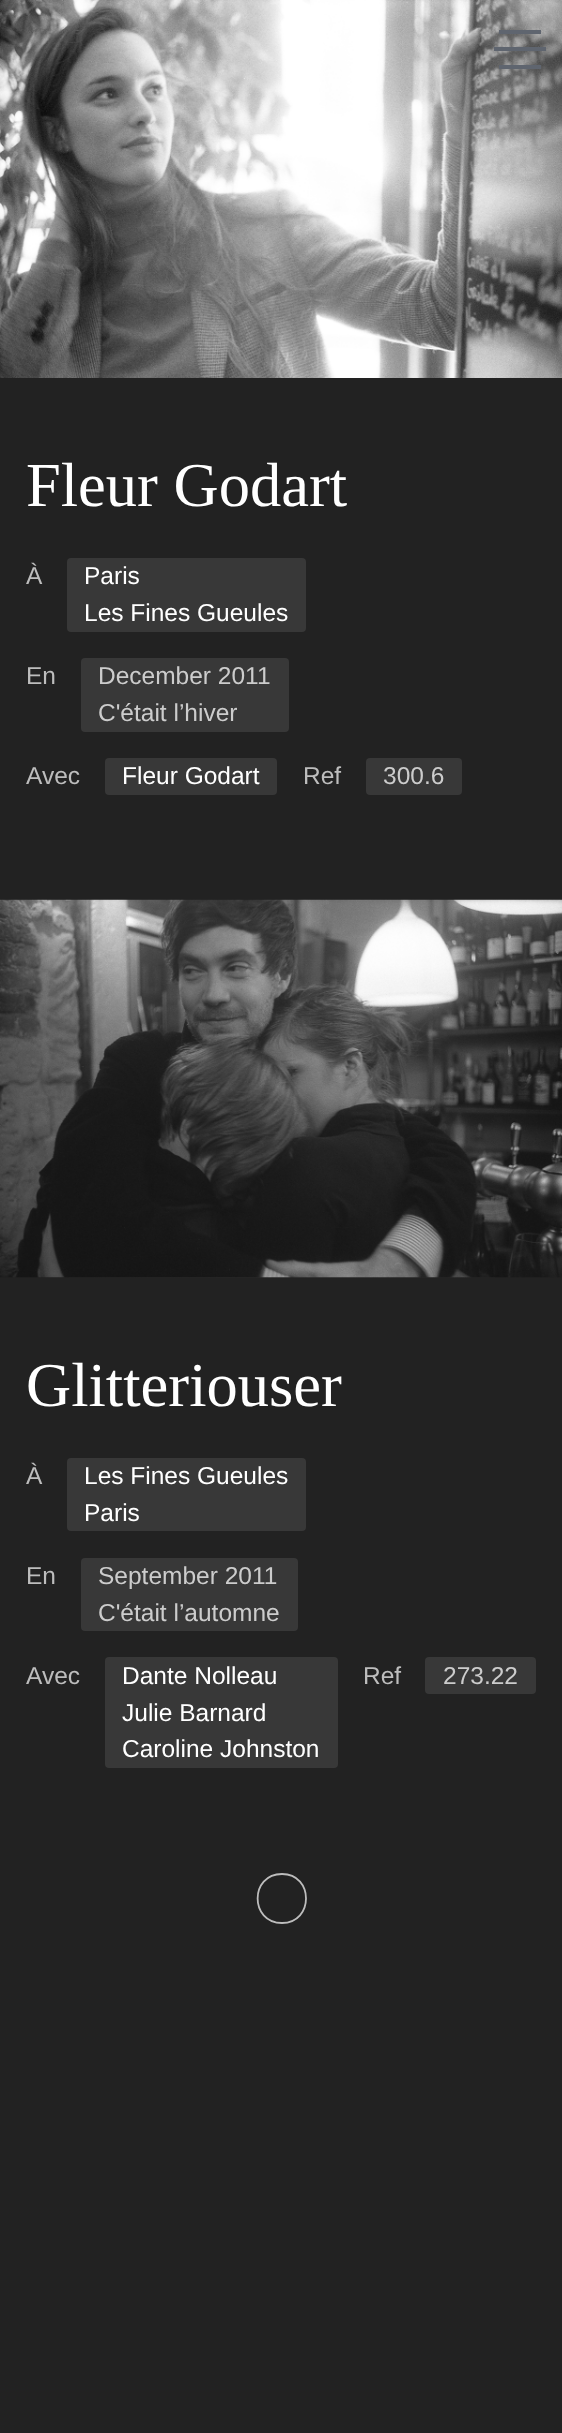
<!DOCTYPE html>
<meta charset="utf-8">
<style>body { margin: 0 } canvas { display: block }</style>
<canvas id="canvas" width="562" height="2433"></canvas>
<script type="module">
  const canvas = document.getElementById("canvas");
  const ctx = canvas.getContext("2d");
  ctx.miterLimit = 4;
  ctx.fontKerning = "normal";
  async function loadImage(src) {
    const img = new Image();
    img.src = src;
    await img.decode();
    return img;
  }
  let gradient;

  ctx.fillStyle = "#222222";
  ctx.fillRect(0, 0, 562, 2433);
  ctx.drawImage(await loadImage("img1.png"), 0, 0, 562, 378);
  ctx.fillStyle = "#5f656f";
  ctx.fillRect(499, 30, 42, 4);
  ctx.fillRect(494, 47, 52, 4);
  ctx.fillRect(499, 65, 42, 4);
  ctx.font = "62.5px Liberation Serif";
  ctx.fillStyle = "#ffffff";
  ctx.fillText("Fleur Godart", 26, 506);
  ctx.font = "24.5px Liberation Sans";
  ctx.fillStyle = "#bdbdbd";
  ctx.fillText("À", 26, 584);
  ctx.fillStyle = "#383838";
  ctx.beginPath();
  ctx.roundRect(67, 558, 239, 74, 4);
  ctx.fill();
  ctx.fillStyle = "#ffffff";
  ctx.fillText("Paris", 84, 584);
  ctx.fillText("Les Fines Gueules", 84, 621);
  ctx.fillStyle = "#bdbdbd";
  ctx.fillText("En", 26, 684);
  ctx.fillStyle = "#383838";
  ctx.beginPath();
  ctx.roundRect(81, 658, 208, 74, 4);
  ctx.fill();
  ctx.fillStyle = "#cccccc";
  ctx.fillText("December 2011", 98, 684);
  ctx.fillText("C'était l’hiver", 98, 721);
  ctx.fillStyle = "#bdbdbd";
  ctx.fillText("Avec", 26, 784);
  ctx.fillStyle = "#383838";
  ctx.beginPath();
  ctx.roundRect(105, 758, 172, 37, 4);
  ctx.fill();
  ctx.fillStyle = "#ffffff";
  ctx.fillText("Fleur Godart", 122, 784);
  ctx.fillStyle = "#bdbdbd";
  ctx.fillText("Ref", 303, 784);
  ctx.fillStyle = "#383838";
  ctx.beginPath();
  ctx.roundRect(366, 758, 96, 37, 4);
  ctx.fill();
  ctx.fillStyle = "#cccccc";
  ctx.fillText("300.6", 383, 784);
  gradient = ctx.createRadialGradient(282, 1623.3, 0, 282, 1623.3, 398);
  gradient.addColorStop(0, "#383838");
  gradient.addColorStop(1, "#222222");
  ctx.fillStyle = gradient;
  ctx.beginPath();
  ctx.rect(69, 1277, 426, 1);
  ctx.save();
  ctx.clip();
  ctx.scale(1, 267 / 398);
  ctx.fillRect(0, 0, 562, 3627);
  ctx.restore();
  ctx.drawImage(await loadImage("img2.png"), 0, 899, 562, 379);
  ctx.font = "62.5px Liberation Serif";
  ctx.fillStyle = "#ffffff";
  ctx.fillText("Glitteriouser", 26, 1406);
  ctx.font = "24.5px Liberation Sans";
  ctx.fillStyle = "#bdbdbd";
  ctx.fillText("À", 26, 1484);
  ctx.fillStyle = "#383838";
  ctx.beginPath();
  ctx.roundRect(67, 1458, 239, 73, 4);
  ctx.fill();
  ctx.fillStyle = "#ffffff";
  ctx.fillText("Les Fines Gueules", 84, 1484);
  ctx.fillText("Paris", 84, 1521);
  ctx.fillStyle = "#bdbdbd";
  ctx.fillText("En", 26, 1584);
  ctx.fillStyle = "#383838";
  ctx.beginPath();
  ctx.roundRect(81, 1558, 217, 73, 4);
  ctx.fill();
  ctx.fillStyle = "#cccccc";
  ctx.fillText("September 2011", 98, 1584);
  ctx.fillText("C'était l’automne", 98, 1621);
  ctx.fillStyle = "#bdbdbd";
  ctx.fillText("Avec", 26, 1684);
  ctx.fillStyle = "#383838";
  ctx.beginPath();
  ctx.roundRect(105, 1657, 233, 111, 4);
  ctx.fill();
  ctx.fillStyle = "#ffffff";
  ctx.fillText("Dante Nolleau", 122, 1684);
  ctx.fillText("Julie Barnard", 122, 1721);
  ctx.fillText("Caroline Johnston", 122, 1757);
  ctx.fillStyle = "#bdbdbd";
  ctx.fillText("Ref", 363, 1684);
  ctx.fillStyle = "#383838";
  ctx.beginPath();
  ctx.roundRect(425, 1657, 111, 37, 4);
  ctx.fill();
  ctx.fillStyle = "#cccccc";
  ctx.fillText("273.22", 443, 1684);
  ctx.beginPath();
  ctx.moveTo(282, 1874);
  ctx.bezierCurveTo(314, 1874, 314, 1923, 282, 1923);
  ctx.bezierCurveTo(249.5, 1923, 249.5, 1874, 282, 1874);
  ctx.strokeStyle = "#bdbdbd";
  ctx.lineWidth = 1.8;
  ctx.lineCap = "round";
  ctx.stroke();
</script>
